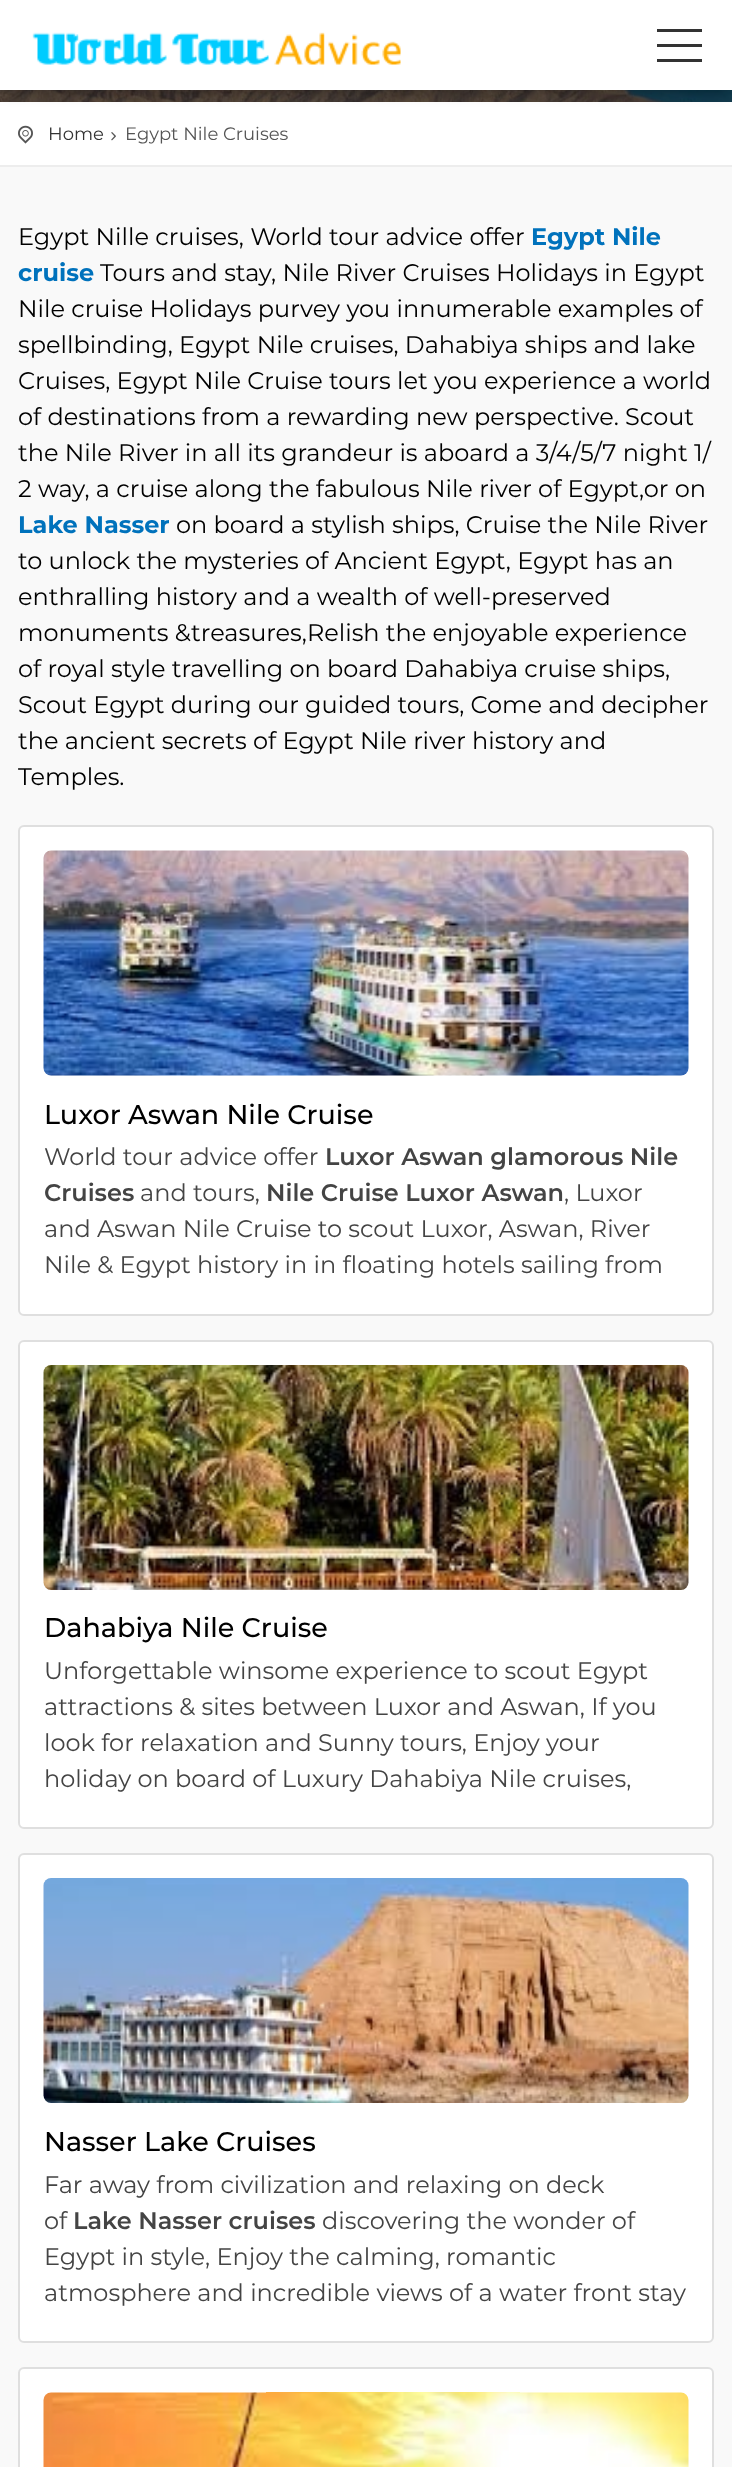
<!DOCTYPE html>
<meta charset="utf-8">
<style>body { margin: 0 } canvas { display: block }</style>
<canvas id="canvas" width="732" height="2467"></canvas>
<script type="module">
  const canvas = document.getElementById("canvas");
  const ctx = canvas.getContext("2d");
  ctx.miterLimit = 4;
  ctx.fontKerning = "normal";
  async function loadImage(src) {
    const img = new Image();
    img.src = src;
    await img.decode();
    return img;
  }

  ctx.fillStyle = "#f9f9f9";
  ctx.fillRect(0, 0, 732, 2467);
  ctx.drawImage(await loadImage("img2.png"), 0, 90, 732, 12);
  ctx.fillStyle = "#ffffff";
  ctx.fillRect(0, 102, 732, 63);
  ctx.fillStyle = "rgba(0, 0, 0, 0.41)";
  ctx.filter = "blur(7.5px)";
  ctx.beginPath();
  ctx.rect(3, 6, 726, 84);
  ctx.fill();
  ctx.filter = "none";
  ctx.fillStyle = "#ffffff";
  ctx.fillRect(0, 0, 732, 90);
  ctx.drawImage(await loadImage("img1.png"), 32, 32, 369, 33);
  ctx.fillStyle = "#333333";
  ctx.fillRect(657, 44, 45, 3);
  ctx.fillRect(657, 29, 45, 3);
  ctx.fillRect(657, 59, 45, 3);
  ctx.fillStyle = "#ededed";
  ctx.fillRect(0, 165, 732, 2);
  ctx.drawImage(await loadImage("img3.png"), 18, 125, 15, 19);
  ctx.font = "18px Montserrat";
  ctx.fillStyle = "#333333";
  ctx.fillText("Home", 48, 140);
  ctx.drawImage(await loadImage("img4.png"), 111, 132, 5, 9);
  ctx.fillStyle = "#555555";
  ctx.fillText("Egypt Nile Cruises", 125, 140);
  ctx.font = "24px Montserrat";
  ctx.fillStyle = "#000000";
  ctx.fillText("Egypt Nille cruises, World tour advice offer", 18, 245);
  ctx.font = "bold 24px Montserrat";
  ctx.fillStyle = "#0072bc";
  ctx.fillText("Egypt Nile", 531, 245);
  ctx.fillText("cruise", 18, 281);
  ctx.font = "24px Montserrat";
  ctx.fillStyle = "#000000";
  ctx.fillText("Tours and stay, Nile River Cruises Holidays in Egypt", 100, 281);
  ctx.fillText("Nile cruise Holidays purvey you innumerable examples of", 18, 317);
  ctx.fillText("spellbinding, Egypt Nile cruises, Dahabiya ships and lake", 18, 353);
  ctx.fillText("Cruises, Egypt Nile Cruise tours let you experience a world", 18, 389);
  ctx.fillText("of destinations from a rewarding new perspective. Scout", 18, 425);
  ctx.fillText("the Nile River in all its grandeur is aboard a 3/4/5/7 night 1/", 18, 461);
  ctx.fillText("2 way, a cruise along the fabulous Nile river of Egypt,or on", 18, 497);
  ctx.font = "bold 24px Montserrat";
  ctx.fillStyle = "#0072bc";
  ctx.fillText("Lake Nasser", 18, 533);
  ctx.font = "24px Montserrat";
  ctx.fillStyle = "#000000";
  ctx.fillText("on board a stylish ships, Cruise the Nile River", 176, 533);
  ctx.fillText("to unlock the mysteries of Ancient Egypt, Egypt has an", 18, 569);
  ctx.fillText("enthralling history and a wealth of well-preserved", 18, 605);
  ctx.fillText("monuments &treasures,Relish the enjoyable experience", 18, 641);
  ctx.fillText("of royal style travelling on board Dahabiya cruise ships,", 18, 677);
  ctx.fillText("Scout Egypt during our guided tours, Come and decipher", 18, 713);
  ctx.fillText("the ancient secrets of Egypt Nile river history and", 18, 749);
  ctx.fillText("Temples.", 18, 785);
  ctx.fillStyle = "#ffffff";
  ctx.beginPath();
  ctx.roundRect(19, 826, 694, 489, 5);
  ctx.fill();
  ctx.strokeStyle = "#dfdfdf";
  ctx.lineWidth = 2;
  ctx.stroke();
  ctx.drawImage(await loadImage("img5.png"), 43, 850, 646, 226);
  ctx.font = "500 27px Montserrat";
  ctx.fillStyle = "#000000";
  ctx.fillText("Luxor Aswan Nile Cruise", 44, 1124);
  ctx.font = "24px Montserrat";
  ctx.fillStyle = "#444444";
  ctx.fillText("World tour advice offer", 44, 1165);
  ctx.font = "600 24px Montserrat";
  ctx.fillText("Luxor Aswan glamorous Nile", 325, 1165);
  ctx.fillText("Cruises", 44, 1201);
  ctx.font = "24px Montserrat";
  ctx.fillText("and tours,", 140, 1201);
  ctx.font = "600 24px Montserrat";
  ctx.fillText("Nile Cruise Luxor Aswan", 266, 1201);
  ctx.font = "24px Montserrat";
  ctx.fillText(", Luxor", 564, 1201);
  ctx.fillText("and Aswan Nile Cruise to scout Luxor, Aswan, River", 44, 1237);
  ctx.fillText("Nile & Egypt history in in floating hotels sailing from", 44, 1273);
  ctx.fillStyle = "#ffffff";
  ctx.beginPath();
  ctx.roundRect(19, 1341, 694, 487, 5);
  ctx.fill();
  ctx.stroke();
  ctx.drawImage(await loadImage("img6.png"), 43, 1365, 646, 225);
  ctx.font = "500 27px Montserrat";
  ctx.fillStyle = "#000000";
  ctx.fillText("Dahabiya Nile Cruise", 44, 1637);
  ctx.font = "24px Montserrat";
  ctx.fillStyle = "#444444";
  ctx.fillText("Unforgettable winsome experience to scout Egypt", 44, 1679);
  ctx.fillText("attractions & sites between Luxor and Aswan, If you", 44, 1715);
  ctx.fillText("look for relaxation and Sunny tours, Enjoy your", 44, 1751);
  ctx.fillText("holiday on board of Luxury Dahabiya Nile cruises,", 44, 1787);
  ctx.fillStyle = "#ffffff";
  ctx.beginPath();
  ctx.roundRect(19, 1854, 694, 488, 5);
  ctx.fill();
  ctx.stroke();
  ctx.drawImage(await loadImage("img7.png"), 43, 1878, 646, 225);
  ctx.font = "500 27px Montserrat";
  ctx.fillStyle = "#000000";
  ctx.fillText("Nasser Lake Cruises", 44, 2151);
  ctx.font = "24px Montserrat";
  ctx.fillStyle = "#444444";
  ctx.fillText("Far away from civilization and relaxing on deck", 44, 2193);
  ctx.fillText("of", 44, 2229);
  ctx.font = "600 24px Montserrat";
  ctx.fillText("Lake Nasser cruises", 73, 2229);
  ctx.font = "24px Montserrat";
  ctx.fillText("discovering the wonder of", 322, 2229);
  ctx.fillText("Egypt in style, Enjoy the calming, romantic", 44, 2265);
  ctx.fillText("atmosphere and incredible views of a water front stay", 44, 2301);
  ctx.fillStyle = "#ffffff";
  ctx.beginPath();
  ctx.roundRect(19, 2368, 694, 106, 5);
  ctx.fill();
  ctx.stroke();
  ctx.drawImage(await loadImage("img8.png"), 43, 2392, 646, 75);
</script>
